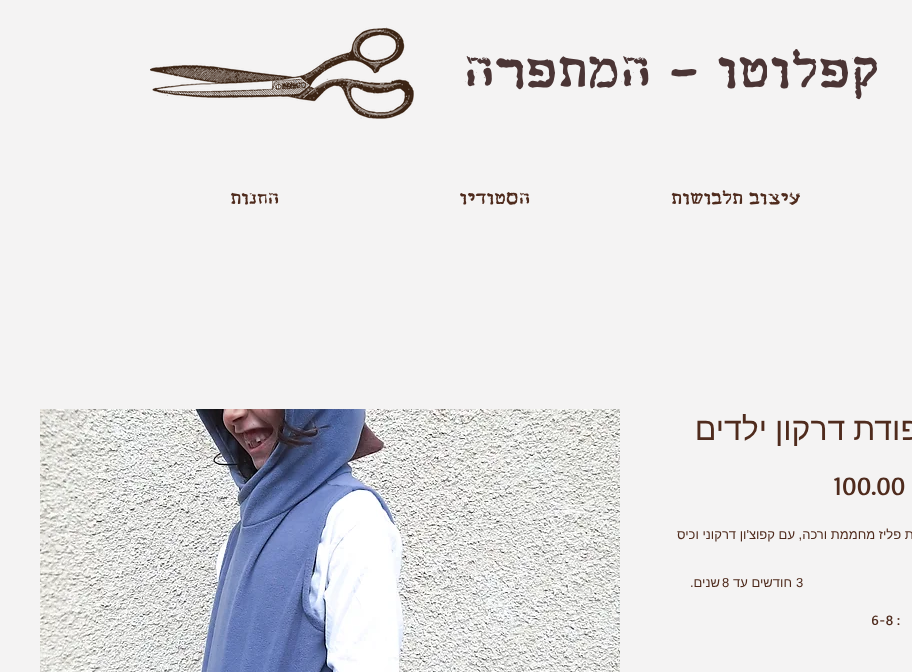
<!DOCTYPE html>
<meta charset="utf-8">
<style>body { margin: 0 } canvas { display: block }</style>
<canvas id="canvas" width="912" height="672"></canvas>
<script type="module">
  const canvas = document.getElementById("canvas");
  const ctx = canvas.getContext("2d");
  ctx.miterLimit = 4;
  ctx.fontKerning = "normal";
  async function loadImage(src) {
    const img = new Image();
    img.src = src;
    await img.decode();
    return img;
  }

  ctx.fillStyle = "#f4f3f3";
  ctx.fillRect(0, 0, 912, 672);
  ctx.direction = "rtl";
  ctx.font = "500 63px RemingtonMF";
  ctx.fillStyle = "#4b3535";
  ctx.fillText("קפלוטו - המתפרה", 880, 87);
  ctx.drawImage(await loadImage("img1.png"), 150, 27, 264, 92);
  ctx.font = "500 23px RemingtonMF";
  ctx.fillStyle = "#4f2b1d";
  ctx.fillText("עיצוב תלבושות", 801, 204);
  ctx.fillText("הסטודיו", 530, 204);
  ctx.fillText("החנות", 279, 204);
  ctx.wordSpacing = "-1px";
  ctx.font = "32px Liberation Sans";
  ctx.fillText("אפודת דרקון ילדים", 940, 440);
  ctx.wordSpacing = "0px";
  ctx.direction = "ltr";
  ctx.font = "26px Basic";
  ctx.fillText("100.00", 833, 495);
  ctx.direction = "rtl";
  ctx.font = "13px Liberation Sans";
  ctx.fillText("אפודת פליז מחממת ורכה, עם קפוצ'ון דרקוני וכיס", 940, 539);
  ctx.direction = "ltr";
  ctx.fillText("3", 796, 587);
  ctx.direction = "rtl";
  ctx.fillText("חודשים עד", 792, 587);
  ctx.direction = "ltr";
  ctx.fillText("8", 722, 587);
  ctx.direction = "rtl";
  ctx.fillText("שנים.", 720, 587);
  ctx.font = "14px Basic";
  ctx.fillText(":", 900, 625);
  ctx.direction = "ltr";
  ctx.fillText("6-8", 871, 625);
  ctx.drawImage(await loadImage("img2.png"), 40, 409, 580, 263);
</script>
